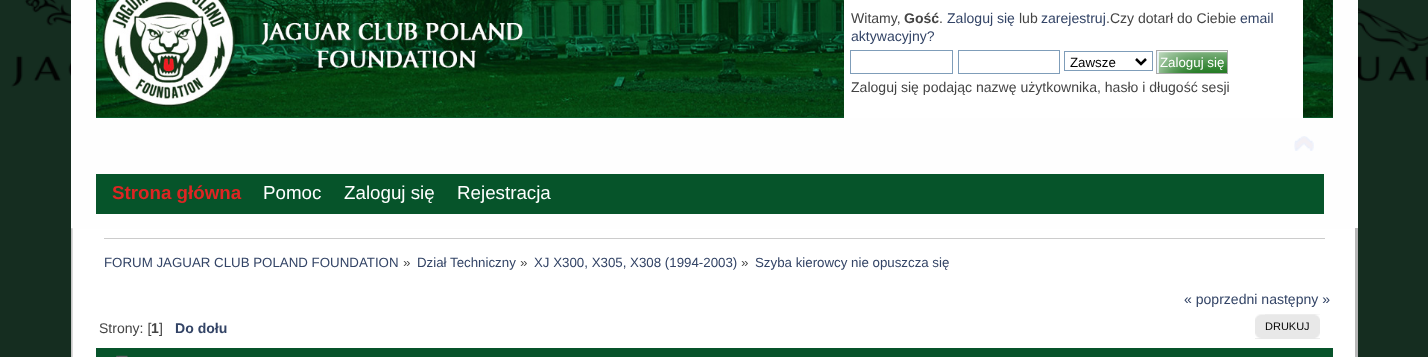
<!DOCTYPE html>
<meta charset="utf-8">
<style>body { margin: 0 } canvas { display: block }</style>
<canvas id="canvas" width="1428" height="357"></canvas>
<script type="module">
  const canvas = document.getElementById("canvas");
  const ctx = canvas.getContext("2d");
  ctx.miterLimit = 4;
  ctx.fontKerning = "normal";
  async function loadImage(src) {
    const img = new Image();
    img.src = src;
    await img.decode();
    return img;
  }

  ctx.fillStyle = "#ffffff";
  ctx.fillRect(0, 0, 1428, 357);
  ctx.drawImage(await loadImage("img1.png"), 0, 0, 1428, 357);
  ctx.fillStyle = "#fefefe";
  ctx.fillRect(71, 0, 1287, 229);
  ctx.fillStyle = "#065528";
  ctx.fillRect(96, 0, 1237, 118);
  ctx.drawImage(await loadImage("img2.png"), 96, 0, 1237, 117);
  ctx.drawImage(await loadImage("img3.png"), 96, 0, 1237, 117);
  ctx.drawImage(await loadImage("img4.png"), 1294, 136, 20, 15);
  ctx.fillStyle = "#ffffff";
  ctx.fillRect(844, 0, 459, 118);
  ctx.font = "14.05px Liberation Sans";
  ctx.fillStyle = "#444444";
  ctx.fillText("Witamy,", 851, 23);
  ctx.font = "bold 14.05px Liberation Sans";
  ctx.fillText("Gość", 904, 23);
  ctx.font = "14.05px Liberation Sans";
  ctx.fillText(".", 939, 23);
  ctx.fillStyle = "#334466";
  ctx.fillText("Zaloguj się", 947, 23);
  ctx.fillStyle = "#444444";
  ctx.fillText("lub", 1019, 23);
  ctx.fillStyle = "#334466";
  ctx.fillText("zarejestruj", 1041, 23);
  ctx.fillStyle = "#444444";
  ctx.fillText(".Czy dotarł do Ciebie", 1106, 23);
  ctx.fillStyle = "#334466";
  ctx.fillText("email", 1240, 23);
  ctx.fillText("aktywacyjny?", 851, 41);
  ctx.strokeStyle = "#7f9db9";
  ctx.strokeRect(850.5, 50.5, 102, 23);
  ctx.strokeRect(958.5, 50.5, 101, 23);
  ctx.strokeRect(1064.5, 51.5, 88, 19);
  ctx.beginPath();
  ctx.moveTo(1136, 59);
  ctx.lineTo(1141, 64);
  ctx.lineTo(1146, 59);
  ctx.strokeStyle = "#000000";
  ctx.lineWidth = 2.5;
  ctx.stroke();
  ctx.font = "13.3px Liberation Sans";
  ctx.fillStyle = "#000000";
  ctx.fillText("Zawsze", 1070, 67);
  ctx.fillStyle = "#cde7ff";
  ctx.fillRect(1157, 51, 1, 22);
  ctx.drawImage(await loadImage("img5.png"), 1157, 51, 70, 22);
  ctx.strokeStyle = "#aaaaaa";
  ctx.lineWidth = 1;
  ctx.strokeRect(1156.5, 50.5, 71, 23);
  ctx.fillStyle = "#ffffff";
  ctx.fillText("Zaloguj się", 1160, 67);
  ctx.font = "14.05px Liberation Sans";
  ctx.fillStyle = "#444444";
  ctx.fillText("Zaloguj się podając nazwę użytkownika, hasło i długość sesji", 851, 92);
  ctx.fillStyle = "#06542a";
  ctx.fillRect(96, 174, 1228, 40);
  ctx.font = "bold 18.75px Liberation Sans";
  ctx.fillStyle = "#de2523";
  ctx.fillText("Strona główna", 112, 199);
  ctx.font = "18.75px Liberation Sans";
  ctx.fillStyle = "#ffffff";
  ctx.fillText("Pomoc", 263, 199);
  ctx.fillText("Zaloguj się", 344, 199);
  ctx.fillText("Rejestracja", 457, 199);
  ctx.fillRect(71, 229, 1284, 128);
  ctx.drawImage(await loadImage("img6.png"), 71, 228, 2, 129);
  ctx.fillStyle = "#b7b7b7";
  ctx.fillRect(1355, 228, 3, 129);
  ctx.fillStyle = "#cccccc";
  ctx.fillRect(104, 238, 1221, 1);
  ctx.font = "13.3px Liberation Sans";
  ctx.fillStyle = "#334466";
  ctx.fillText("FORUM JAGUAR CLUB POLAND FOUNDATION", 104, 267);
  ctx.fillStyle = "#444444";
  ctx.fillText("»", 403, 267);
  ctx.fillStyle = "#334466";
  ctx.fillText("Dział Techniczny", 417, 267);
  ctx.fillStyle = "#444444";
  ctx.fillText("»", 520, 267);
  ctx.fillStyle = "#334466";
  ctx.fillText("XJ X300, X305, X308 (1994-2003)", 534, 267);
  ctx.fillStyle = "#444444";
  ctx.fillText("»", 741, 267);
  ctx.fillStyle = "#334466";
  ctx.fillText("Szyba kierowcy nie opuszcza się", 755, 267);
  ctx.font = "14.05px Liberation Sans";
  ctx.fillText("« poprzedni następny »", 1184, 304);
  ctx.fillStyle = "#444444";
  ctx.fillText("Strony: [", 99, 333);
  ctx.font = "bold 14.05px Liberation Sans";
  ctx.fillText("1", 151, 333);
  ctx.font = "14.05px Liberation Sans";
  ctx.fillText("]", 159, 333);
  ctx.font = "bold 14.05px Liberation Sans";
  ctx.fillStyle = "#334466";
  ctx.fillText("Do dołu", 175, 333);
  ctx.fillStyle = "#e8e8e8";
  ctx.fillRect(1255, 338, 65, 1);
  ctx.drawImage(await loadImage("img7.png"), 1255, 314, 65, 25);
  ctx.drawImage(await loadImage("img8.png"), 1265, 314, 55, 25);
  ctx.font = "11px Liberation Sans";
  ctx.fillStyle = "#000000";
  ctx.fillText("DRUKUJ", 1265, 330);
  ctx.fillStyle = "#07532a";
  ctx.fillRect(96, 348, 1237, 9);
  ctx.drawImage(await loadImage("img9.png"), 116, 355, 12, 2);
</script>
